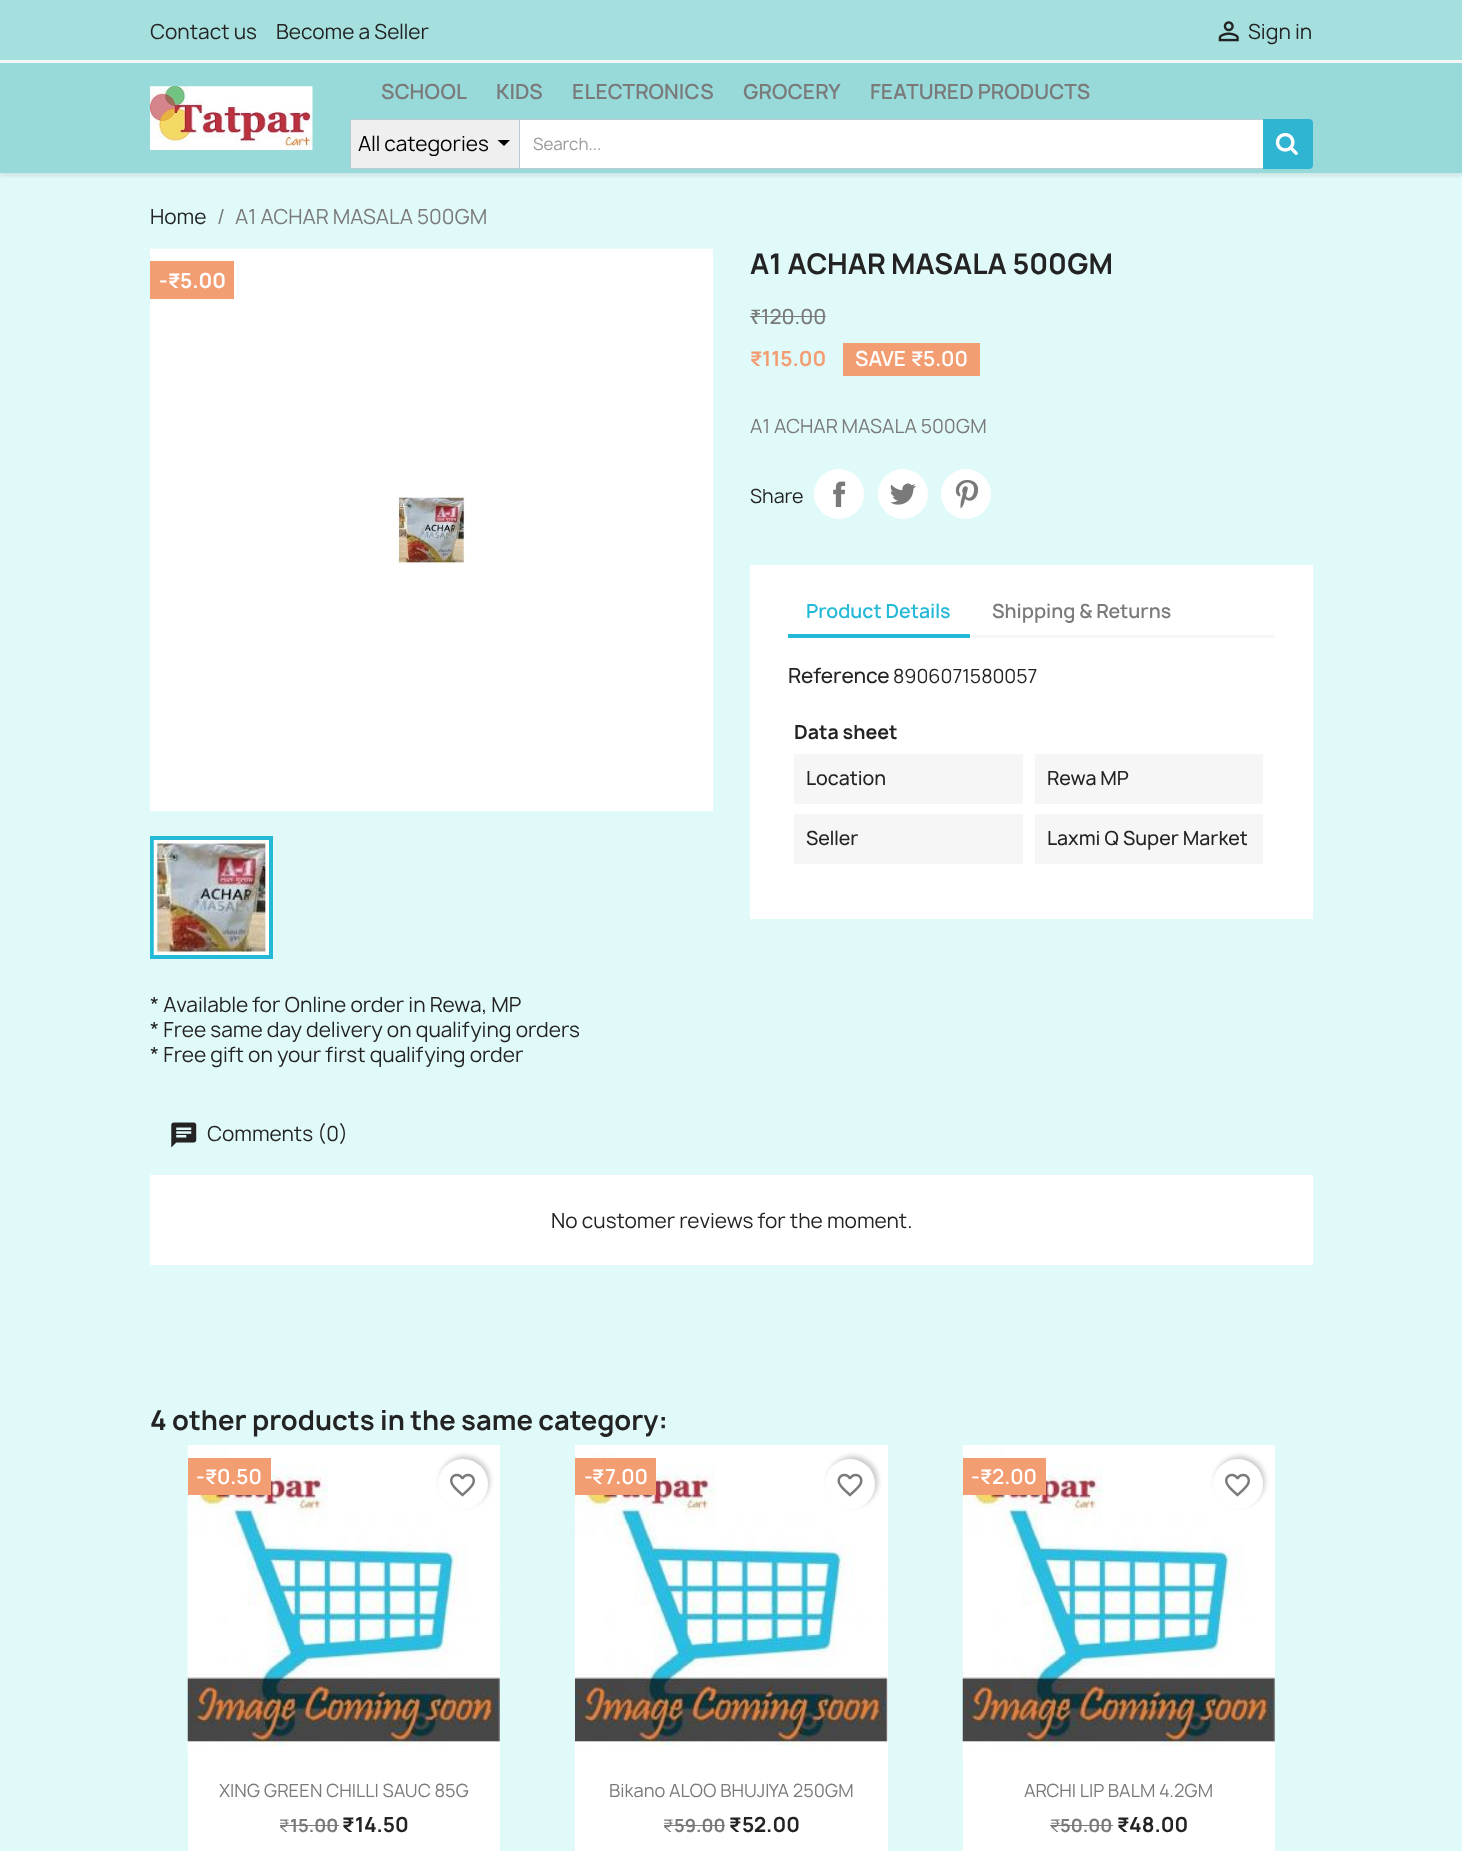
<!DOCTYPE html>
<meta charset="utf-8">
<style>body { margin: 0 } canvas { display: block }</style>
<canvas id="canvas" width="1462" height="1851"></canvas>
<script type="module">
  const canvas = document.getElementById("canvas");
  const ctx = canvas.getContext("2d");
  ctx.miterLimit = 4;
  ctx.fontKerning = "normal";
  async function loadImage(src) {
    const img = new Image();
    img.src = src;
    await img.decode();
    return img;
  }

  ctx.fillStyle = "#ffffff";
  ctx.fillRect(0, 0, 1462, 1851);
  ctx.fillStyle = "#e0faf9";
  ctx.fillRect(0, 173, 1462, 1678);
  ctx.save();
  ctx.beginPath();
  ctx.rect(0, 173, 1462, 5);
  ctx.clip();
  ctx.fillStyle = "rgba(0, 0, 0, 0.11)";
  ctx.filter = "blur(3px)";
  ctx.beginPath();
  ctx.rect(0, 3, 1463, 172);
  ctx.fill();
  ctx.filter = "none";
  ctx.restore();
  ctx.fillStyle = "rgba(149, 217, 216, 0.85)";
  ctx.fillRect(0, 0, 1462, 60);
  ctx.fillStyle = "#f6f6f6";
  ctx.fillRect(0, 60, 1462, 3);
  ctx.font = "20px Manrope";
  ctx.fillStyle = "#232323";
  ctx.fillText("Contact us", 150, 39);
  ctx.fillText("Become a Seller", 276, 39);
  ctx.drawImage(await loadImage("img1.png"), 1218, 21, 21, 21);
  ctx.fillText("Sign in", 1248, 39);
  ctx.fillStyle = "#97dad9";
  ctx.fillRect(0, 63, 1462, 110);
  ctx.drawImage(await loadImage("img2.png"), 150, 86, 163, 64);
  ctx.font = "600 20px Manrope";
  ctx.fillStyle = "#7a7a7a";
  ctx.fillText("SCHOOL", 381, 99);
  ctx.fillText("KIDS", 496, 99);
  ctx.fillText("ELECTRONICS", 572, 99);
  ctx.fillText("GROCERY", 743, 99);
  ctx.fillText("FEATURED PRODUCTS", 870, 99);
  ctx.fillStyle = "#efefef";
  ctx.beginPath();
  ctx.roundRect(350, 119, 169, 50, [2.5, 0, 0, 2.5]);
  ctx.fill();
  ctx.fillStyle = "#000000";
  ctx.beginPath();
  ctx.moveTo(497.5, 140);
  ctx.lineTo(504, 146);
  ctx.lineTo(510, 140);
  ctx.closePath();
  ctx.fill();
  ctx.fillStyle = "#bbcdd2";
  ctx.fillRect(351, 119, 168, 1);
  ctx.fillRect(351, 168, 168, 1);
  ctx.fillRect(350, 120, 1, 48);
  ctx.save();
  ctx.beginPath();
  ctx.rect(358, 131, 136, 25);
  ctx.clip();
  ctx.font = "20px Manrope";
  ctx.fillStyle = "#000000";
  ctx.fillText("All categories", 358, 151);
  ctx.restore();
  ctx.fillStyle = "#ffffff";
  ctx.beginPath();
  ctx.rect(519.5, 119.5, 793, 49);
  ctx.fill();
  ctx.strokeStyle = "#bbcdd2";
  ctx.stroke();
  ctx.font = "16.25px Manrope";
  ctx.fillStyle = "#999999";
  ctx.fillText("Search...", 533, 150);
  ctx.fillStyle = "#2fb5d2";
  ctx.beginPath();
  ctx.roundRect(1263, 119, 50, 50, [0, 4, 4, 0]);
  ctx.fill();
  ctx.drawImage(await loadImage("img3.png"), 1275, 132, 23, 23);
  ctx.font = "20px Manrope";
  ctx.fillStyle = "#232323";
  ctx.fillText("Home", 150, 224);
  ctx.fillStyle = "#7a7a7a";
  ctx.fillText("/", 217, 224);
  ctx.fillText("A1 ACHAR MASALA 500GM", 235, 224);
  ctx.drawImage(await loadImage("img4.png"), 150, 248, 562, 564);
  ctx.fillStyle = "#ffffff";
  ctx.fillRect(712, 249, 1, 562);
  ctx.strokeStyle = "#24b9d7";
  ctx.lineWidth = 4;
  ctx.strokeRect(152, 838, 119, 119);
  ctx.drawImage(await loadImage("img5.png"), 153, 840, 116, 115);
  ctx.fillStyle = "#f39d72";
  ctx.fillRect(150, 261, 84, 38);
  ctx.font = "bold 20px Manrope";
  ctx.fillStyle = "#ffffff";
  ctx.fillText("-", 159, 288);
  ctx.font = "bold 20px 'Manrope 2'";
  ctx.fillText("₹", 168, 288);
  ctx.font = "bold 20px Manrope";
  ctx.fillText("5.00", 180, 288);
  ctx.font = "bold 27.5px Manrope";
  ctx.fillStyle = "#232323";
  ctx.fillText("A1 ACHAR MASALA 500GM", 750, 274);
  ctx.font = "500 20px Noto Sans";
  ctx.fillStyle = "#7a7a7a";
  ctx.fillText("₹", 750, 324);
  ctx.fillRect(750, 316, 76, 1);
  ctx.font = "500 20px Manrope";
  ctx.fillText("120.00", 761, 324);
  ctx.font = "bold 20px 'Manrope 2'";
  ctx.fillStyle = "#f39d72";
  ctx.fillText("₹", 750, 366);
  ctx.font = "bold 20px Manrope";
  ctx.fillText("115.00", 762, 366);
  ctx.fillRect(843, 343, 137, 33);
  ctx.font = "600 20px Manrope";
  ctx.fillStyle = "#ffffff";
  ctx.fillText("SAVE", 855, 366);
  ctx.font = "600 20px 'Manrope 2'";
  ctx.fillText("₹", 911, 366);
  ctx.font = "600 20px Manrope";
  ctx.fillText("5.00", 923, 366);
  ctx.font = "18.75px Manrope";
  ctx.fillStyle = "#7a7a7a";
  ctx.fillText("A1 ACHAR MASALA 500GM", 750, 433);
  ctx.fillStyle = "#232323";
  ctx.fillText("Share", 750, 503);
  ctx.fillStyle = "#ffffff";
  ctx.beginPath();
  ctx.arc(839, 494, 25, 0, Math.PI * 2);
  ctx.fill();
  ctx.drawImage(await loadImage("img6.png"), 833, 481, 13, 26);
  ctx.beginPath();
  ctx.arc(903, 494, 25, 0, Math.PI * 2);
  ctx.fill();
  ctx.drawImage(await loadImage("img7.png"), 890, 483, 26, 22);
  ctx.beginPath();
  ctx.arc(966, 494, 25, 0, Math.PI * 2);
  ctx.fill();
  ctx.drawImage(await loadImage("img8.png"), 955, 480, 24, 29);
  ctx.fillRect(750, 565, 563, 354);
  ctx.fillStyle = "#f6f6f6";
  ctx.fillRect(970, 635, 305, 3);
  ctx.fillStyle = "#24b9d7";
  ctx.fillRect(788, 634, 182, 4);
  ctx.font = "600 18.75px Manrope";
  ctx.fillText("Product Details", 806, 618);
  ctx.fillStyle = "#7a7a7a";
  ctx.fillText("Shipping & Returns", 992, 618);
  ctx.font = "500 20px Manrope";
  ctx.fillStyle = "#232323";
  ctx.fillText("Reference", 788, 683);
  ctx.font = "18.75px Manrope";
  ctx.fillText("8906071580057", 893, 683);
  ctx.font = "bold 18.75px Manrope";
  ctx.fillText("Data sheet", 794, 739);
  ctx.fillStyle = "#f6f6f6";
  ctx.fillRect(794, 754, 229, 50);
  ctx.font = "500 18.75px Manrope";
  ctx.fillStyle = "#232323";
  ctx.fillText("Location", 806, 785);
  ctx.fillStyle = "#f6f6f6";
  ctx.fillRect(1035, 754, 228, 50);
  ctx.fillStyle = "#232323";
  ctx.fillText("Rewa MP", 1047, 785);
  ctx.fillStyle = "#f6f6f6";
  ctx.fillRect(794, 814, 229, 50);
  ctx.fillStyle = "#232323";
  ctx.fillText("Seller", 806, 845);
  ctx.fillStyle = "#f6f6f6";
  ctx.fillRect(1035, 814, 228, 50);
  ctx.fillStyle = "#232323";
  ctx.fillText("Laxmi Q Super Market", 1047, 845);
  ctx.font = "20px Manrope";
  ctx.fillText("* Available for Online order in Rewa, MP", 150, 1012);
  ctx.fillText("* Free same day delivery on qualifying orders", 150, 1037);
  ctx.fillText("* Free gift on your first qualifying order", 150, 1062);
  ctx.drawImage(await loadImage("img9.png"), 171, 1122, 26, 26);
  ctx.fillText("Comments (0)", 207, 1141);
  ctx.fillStyle = "#ffffff";
  ctx.fillRect(150, 1175, 1163, 90);
  ctx.fillStyle = "#232323";
  ctx.fillText("No customer reviews for the moment.", 551, 1228);
  ctx.font = "bold 26.25px Manrope";
  ctx.fillText("4 other products in the same category:", 150, 1430);
  ctx.fillStyle = "#ffffff";
  ctx.fillRect(188, 1757, 312, 94);
  ctx.drawImage(await loadImage("img10.png"), 187, 1445, 313, 312);
  ctx.fillStyle = "#f39d72";
  ctx.fillRect(188, 1458, 83, 37);
  ctx.font = "600 20px Manrope";
  ctx.fillStyle = "#ffffff";
  ctx.fillText("-", 196, 1484);
  ctx.font = "600 20px 'Manrope 2'";
  ctx.fillText("₹", 205, 1484);
  ctx.font = "600 20px Manrope";
  ctx.fillText("0.50", 217, 1484);
  ctx.fillStyle = "rgba(0, 0, 0, 0.2)";
  ctx.filter = "blur(2.5px)";
  ctx.beginPath();
  ctx.roundRect(440, 1456, 50, 50, 25);
  ctx.fill();
  ctx.filter = "none";
  ctx.fillStyle = "#ffffff";
  ctx.beginPath();
  ctx.arc(463, 1484, 25, 0, Math.PI * 2);
  ctx.fill();
  ctx.drawImage(await loadImage("img11.png"), 450, 1473, 25, 24);
  ctx.font = "17.5px Manrope";
  ctx.fillStyle = "#7a7a7a";
  ctx.fillText("XING GREEN CHILLI SAUC 85G", 219, 1797);
  ctx.font = "17.5px 'Manrope 2'";
  ctx.fillText("₹", 279, 1832);
  ctx.fillRect(280, 1825, 59, 1);
  ctx.font = "bold 17.5px Manrope";
  ctx.fillText("15.00", 290, 1832);
  ctx.font = "bold 20px 'Manrope 2'";
  ctx.fillStyle = "#232323";
  ctx.fillText("₹", 342, 1832);
  ctx.font = "bold 20px Manrope";
  ctx.fillText("14.50", 355, 1832);
  ctx.fillStyle = "#ffffff";
  ctx.fillRect(575, 1445, 313, 406);
  ctx.drawImage(await loadImage("img13.png"), 575, 1451, 313, 295);
  ctx.fillStyle = "rgba(0, 0, 0, 0.2)";
  ctx.filter = "blur(2.5px)";
  ctx.beginPath();
  ctx.roundRect(828, 1456, 50, 50, 25);
  ctx.fill();
  ctx.filter = "none";
  ctx.fillStyle = "#ffffff";
  ctx.beginPath();
  ctx.arc(850, 1484, 25, 0, Math.PI * 2);
  ctx.fill();
  ctx.drawImage(await loadImage("img12.png"), 837, 1473, 26, 24);
  ctx.fillStyle = "#f39d72";
  ctx.fillRect(575, 1458, 81, 37);
  ctx.font = "600 20px Manrope";
  ctx.fillStyle = "#ffffff";
  ctx.fillText("-", 584, 1484);
  ctx.font = "600 20px 'Manrope 2'";
  ctx.fillText("₹", 592, 1484);
  ctx.font = "600 20px Manrope";
  ctx.fillText("7.00", 605, 1484);
  ctx.font = "17.5px Manrope";
  ctx.fillStyle = "#7a7a7a";
  ctx.fillText("Bikano ALOO BHUJIYA 250GM", 609, 1797);
  ctx.font = "17.5px 'Manrope 2'";
  ctx.fillText("₹", 663, 1832);
  ctx.fillRect(664, 1825, 61, 1);
  ctx.font = "bold 17.5px Manrope";
  ctx.fillText("59.00", 674, 1832);
  ctx.font = "bold 20px 'Manrope 2'";
  ctx.fillStyle = "#232323";
  ctx.fillText("₹", 729, 1832);
  ctx.font = "bold 20px Manrope";
  ctx.fillText("52.00", 742, 1832);
  ctx.fillStyle = "#ffffff";
  ctx.fillRect(963, 1757, 312, 94);
  ctx.drawImage(await loadImage("img14.png"), 962, 1445, 313, 312);
  ctx.fillStyle = "#f39d72";
  ctx.fillRect(963, 1458, 83, 37);
  ctx.font = "600 20px Manrope";
  ctx.fillStyle = "#ffffff";
  ctx.fillText("-", 971, 1484);
  ctx.font = "600 20px 'Manrope 2'";
  ctx.fillText("₹", 980, 1484);
  ctx.font = "600 20px Manrope";
  ctx.fillText("2.00", 992, 1484);
  ctx.fillStyle = "rgba(0, 0, 0, 0.2)";
  ctx.filter = "blur(2.5px)";
  ctx.beginPath();
  ctx.roundRect(1215, 1456, 50, 50, 25);
  ctx.fill();
  ctx.filter = "none";
  ctx.fillStyle = "#ffffff";
  ctx.beginPath();
  ctx.arc(1238, 1484, 25, 0, Math.PI * 2);
  ctx.fill();
  ctx.drawImage(await loadImage("img11.png"), 1225, 1473, 25, 24);
  ctx.font = "17.5px Manrope";
  ctx.fillStyle = "#7a7a7a";
  ctx.fillText("ARCHI LIP BALM 4.2GM", 1024, 1797);
  ctx.font = "17.5px 'Manrope 2'";
  ctx.fillText("₹", 1050, 1832);
  ctx.fillRect(1050, 1825, 63, 1);
  ctx.font = "bold 17.5px Manrope";
  ctx.fillText("50.00", 1060, 1832);
  ctx.font = "bold 20px 'Manrope 2'";
  ctx.fillStyle = "#232323";
  ctx.fillText("₹", 1117, 1832);
  ctx.font = "bold 20px Manrope";
  ctx.fillText("48.00", 1129, 1832);
</script>
